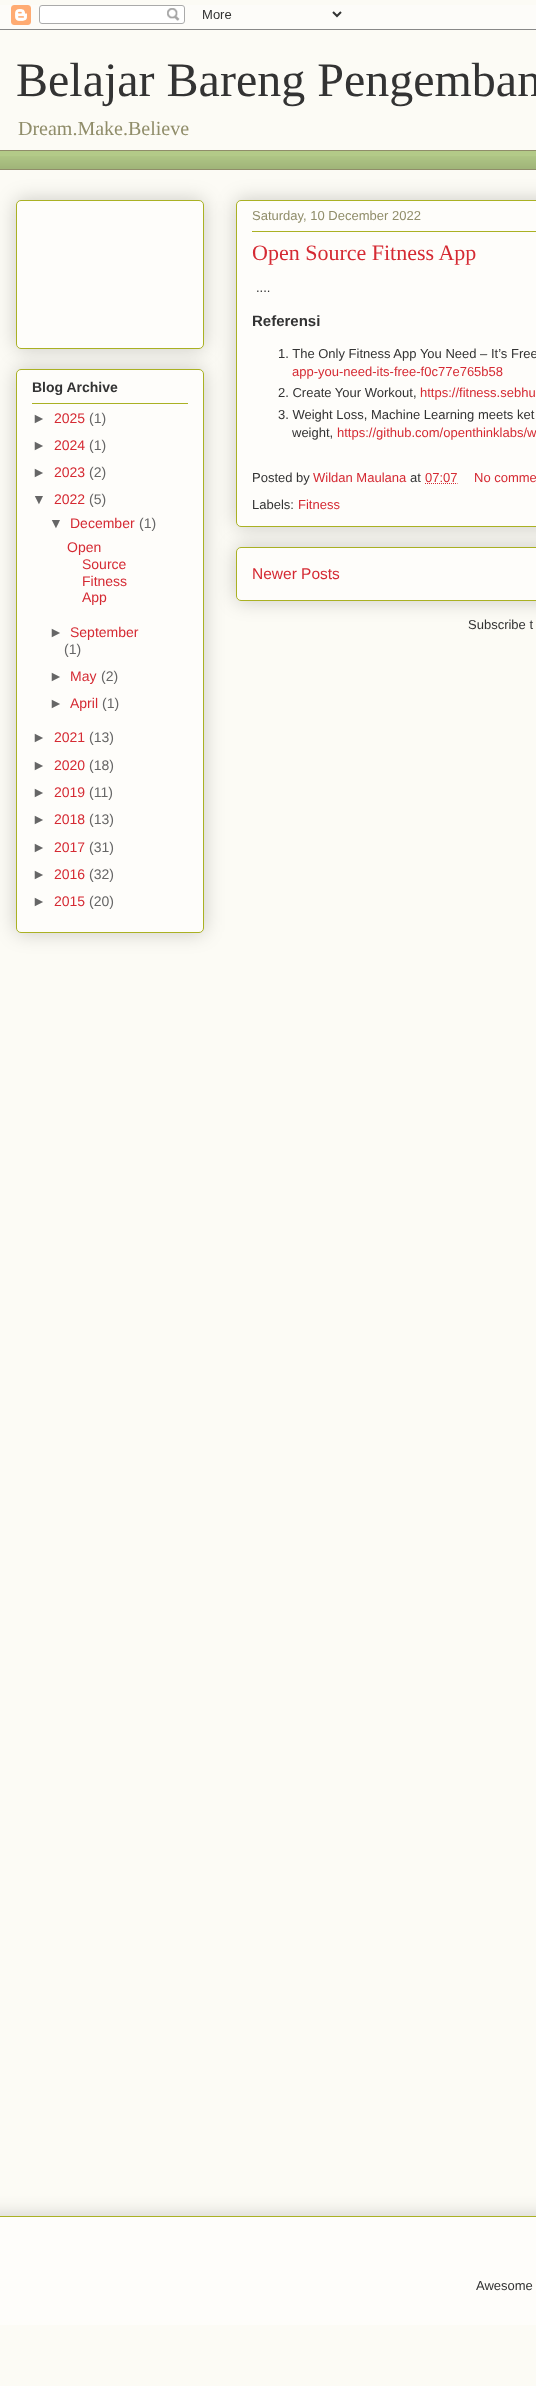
<!DOCTYPE html>
<meta charset="utf-8">
<style>body { margin: 0 } canvas { display: block }</style>
<canvas id="canvas" width="536" height="2386"></canvas>
<script type="module">
  const canvas = document.getElementById("canvas");
  const ctx = canvas.getContext("2d");
  ctx.miterLimit = 4;
  ctx.fontKerning = "normal";
  async function loadImage(src) {
    const img = new Image();
    img.src = src;
    await img.decode();
    return img;
  }

  ctx.fillStyle = "#fcfbf5";
  ctx.fillRect(0, 0, 536, 2386);
  ctx.drawImage(await loadImage("img1.png"), 0, 5, 536, 25);
  ctx.font = "48px Liberation Serif";
  ctx.fillStyle = "#333333";
  ctx.fillText("Belajar Bareng Pengemban", 16, 96);
  ctx.font = "20px Liberation Serif";
  ctx.fillStyle = "#908d6a";
  ctx.fillText("Dream.Make.Believe", 18, 135);
  ctx.fillStyle = "#b3ca88";
  ctx.fillRect(0, 151, 536, 18);
  ctx.drawImage(await loadImage("img2.png"), 0, 156, 536, 13);
  ctx.fillStyle = "#908d6a";
  ctx.fillRect(0, 150, 536, 1);
  ctx.fillRect(0, 169, 536, 1);
  ctx.fillStyle = "rgba(0, 0, 0, 0.2)";
  ctx.filter = "blur(10px)";
  ctx.beginPath();
  ctx.roundRect(16, 200, 188, 149, 5);
  ctx.fill();
  ctx.filter = "none";
  ctx.fillStyle = "#fefdfa";
  ctx.beginPath();
  ctx.roundRect(16.5, 200.5, 187, 148, 4.5);
  ctx.fill();
  ctx.strokeStyle = "#aab123";
  ctx.stroke();
  ctx.fillStyle = "rgba(0, 0, 0, 0.2)";
  ctx.filter = "blur(10px)";
  ctx.beginPath();
  ctx.roundRect(16, 369, 188, 564, 5);
  ctx.fill();
  ctx.filter = "none";
  ctx.fillStyle = "#fefdfa";
  ctx.beginPath();
  ctx.roundRect(16.5, 369.5, 187, 563, 4.5);
  ctx.fill();
  ctx.stroke();
  ctx.font = "bold 14px Liberation Sans";
  ctx.fillStyle = "#333333";
  ctx.fillText("Blog Archive", 32, 392);
  ctx.fillStyle = "#aab123";
  ctx.fillRect(32, 403, 156, 1);
  ctx.font = "14px Liberation Sans";
  ctx.fillStyle = "#666666";
  ctx.fillText("►", 32, 423);
  ctx.fillStyle = "#d52a33";
  ctx.fillText("2025", 54, 423);
  ctx.fillStyle = "#666666";
  ctx.fillText("(1)", 89, 423);
  ctx.fillText("►", 32, 450);
  ctx.fillStyle = "#d52a33";
  ctx.fillText("2024", 54, 450);
  ctx.fillStyle = "#666666";
  ctx.fillText("(1)", 89, 450);
  ctx.fillText("►", 32, 477);
  ctx.fillStyle = "#d52a33";
  ctx.fillText("2023", 54, 477);
  ctx.fillStyle = "#666666";
  ctx.fillText("(2)", 89, 477);
  ctx.fillText("▼", 32, 504);
  ctx.fillStyle = "#d52a33";
  ctx.fillText("2022", 54, 504);
  ctx.fillStyle = "#666666";
  ctx.fillText("(5)", 89, 504);
  ctx.fillText("▼", 49, 528);
  ctx.fillStyle = "#d52a33";
  ctx.fillText("December", 70, 528);
  ctx.fillStyle = "#666666";
  ctx.fillText("(1)", 139, 528);
  ctx.fillStyle = "#d52a33";
  ctx.fillText("Open", 67, 552);
  ctx.fillText("Source", 82, 569);
  ctx.fillText("Fitness", 82, 586);
  ctx.fillText("App", 82, 602);
  ctx.fillStyle = "#666666";
  ctx.fillText("►", 49, 637);
  ctx.fillStyle = "#d52a33";
  ctx.fillText("September", 70, 637);
  ctx.fillStyle = "#666666";
  ctx.fillText("(1)", 64, 654);
  ctx.fillText("►", 49, 681);
  ctx.fillStyle = "#d52a33";
  ctx.fillText("May", 70, 681);
  ctx.fillStyle = "#666666";
  ctx.fillText("(2)", 101, 681);
  ctx.fillText("►", 49, 708);
  ctx.fillStyle = "#d52a33";
  ctx.fillText("April", 70, 708);
  ctx.fillStyle = "#666666";
  ctx.fillText("(1)", 102, 708);
  ctx.fillText("►", 32, 742);
  ctx.fillStyle = "#d52a33";
  ctx.fillText("2021", 54, 742);
  ctx.fillStyle = "#666666";
  ctx.fillText("(13)", 89, 742);
  ctx.fillText("►", 32, 770);
  ctx.fillStyle = "#d52a33";
  ctx.fillText("2020", 54, 770);
  ctx.fillStyle = "#666666";
  ctx.fillText("(18)", 89, 770);
  ctx.fillText("►", 32, 797);
  ctx.fillStyle = "#d52a33";
  ctx.fillText("2019", 54, 797);
  ctx.fillStyle = "#666666";
  ctx.fillText("(11)", 89, 797);
  ctx.fillText("►", 32, 824);
  ctx.fillStyle = "#d52a33";
  ctx.fillText("2018", 54, 824);
  ctx.fillStyle = "#666666";
  ctx.fillText("(13)", 89, 824);
  ctx.fillText("►", 32, 852);
  ctx.fillStyle = "#d52a33";
  ctx.fillText("2017", 54, 852);
  ctx.fillStyle = "#666666";
  ctx.fillText("(31)", 89, 852);
  ctx.fillText("►", 32, 879);
  ctx.fillStyle = "#d52a33";
  ctx.fillText("2016", 54, 879);
  ctx.fillStyle = "#666666";
  ctx.fillText("(32)", 89, 879);
  ctx.fillText("►", 32, 906);
  ctx.fillStyle = "#d52a33";
  ctx.fillText("2015", 54, 906);
  ctx.fillStyle = "#666666";
  ctx.fillText("(20)", 89, 906);
  ctx.fillStyle = "rgba(0, 0, 0, 0.2)";
  ctx.filter = "blur(10px)";
  ctx.beginPath();
  ctx.roundRect(236, 547, 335, 54, 5);
  ctx.fill();
  ctx.filter = "none";
  ctx.fillStyle = "#fefdfa";
  ctx.beginPath();
  ctx.roundRect(236.5, 547.5, 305, 53, 4.5);
  ctx.fill();
  ctx.stroke();
  ctx.fillStyle = "rgba(0, 0, 0, 0.2)";
  ctx.filter = "blur(10px)";
  ctx.beginPath();
  ctx.roundRect(236, 200, 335, 327, 5);
  ctx.fill();
  ctx.filter = "none";
  ctx.fillStyle = "#fefdfa";
  ctx.beginPath();
  ctx.roundRect(236.5, 200.5, 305, 326, 4.5);
  ctx.fill();
  ctx.stroke();
  ctx.font = "13px Liberation Sans";
  ctx.fillStyle = "#908d6a";
  ctx.fillText("Saturday, 10 December 2022", 252, 220);
  ctx.fillStyle = "#aab123";
  ctx.fillRect(252, 231, 284, 1);
  ctx.font = "22px Liberation Serif";
  ctx.fillStyle = "#d52a33";
  ctx.fillText("Open Source Fitness App", 252, 260);
  ctx.font = "13px Liberation Sans";
  ctx.fillStyle = "#333333";
  ctx.fillText("....", 256, 292);
  ctx.font = "bold 15px Liberation Sans";
  ctx.fillText("Referensi", 252, 326);
  ctx.font = "13px Liberation Sans";
  ctx.fillText("1. The Only Fitness App You Need – It’s Free", 278, 358);
  ctx.fillStyle = "#d52a33";
  ctx.fillText("app-you-need-its-free-f0c77e765b58", 292, 376);
  ctx.fillStyle = "#333333";
  ctx.fillText("2. Create Your Workout,", 278, 397);
  ctx.fillStyle = "#d52a33";
  ctx.fillText("https://fitness.sebhu", 420, 397);
  ctx.fillStyle = "#333333";
  ctx.fillText("3. Weight Loss, Machine Learning meets ket", 278, 419);
  ctx.fillText("weight,", 292, 437);
  ctx.fillStyle = "#d52a33";
  ctx.fillText("https://github.com/openthinklabs/w", 337, 437);
  ctx.fillStyle = "#333333";
  ctx.fillText("Posted by", 252, 482);
  ctx.fillStyle = "#d52a33";
  ctx.fillText("Wildan Maulana", 313, 482);
  ctx.fillStyle = "#333333";
  ctx.fillText("at", 410, 482);
  ctx.fillStyle = "#d52a33";
  ctx.fillText("07:07", 425, 482);
  ctx.beginPath();
  ctx.moveTo(425, 483.5);
  ctx.lineTo(457.5, 483.5);
  ctx.strokeStyle = "#d52a33";
  ctx.setLineDash([1, 1]);
  ctx.stroke();
  ctx.fillText("No comme", 474, 482);
  ctx.fillStyle = "#333333";
  ctx.fillText("Labels:", 252, 509);
  ctx.fillStyle = "#d52a33";
  ctx.fillText("Fitness", 298, 509);
  ctx.font = "15.5px Liberation Sans";
  ctx.fillText("Newer Posts", 252, 579);
  ctx.font = "13px Liberation Sans";
  ctx.fillStyle = "#333333";
  ctx.fillText("Subscribe t", 468, 629);
  ctx.save();
  ctx.beginPath();
  ctx.rect(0, 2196, 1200, 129);
  ctx.clip();
  ctx.fillStyle = "rgba(0, 0, 0, 0.2)";
  ctx.filter = "blur(10px)";
  ctx.beginPath();
  ctx.rect(-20, 2216, 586, 109);
  ctx.fill();
  ctx.filter = "none";
  ctx.restore();
  ctx.fillStyle = "#fefdfa";
  ctx.fillRect(0, 2217, 536, 108);
  ctx.fillStyle = "#aab123";
  ctx.fillRect(0, 2216, 536, 1);
  ctx.fillStyle = "#333333";
  ctx.fillText("Awesome", 476, 2290);
</script>
